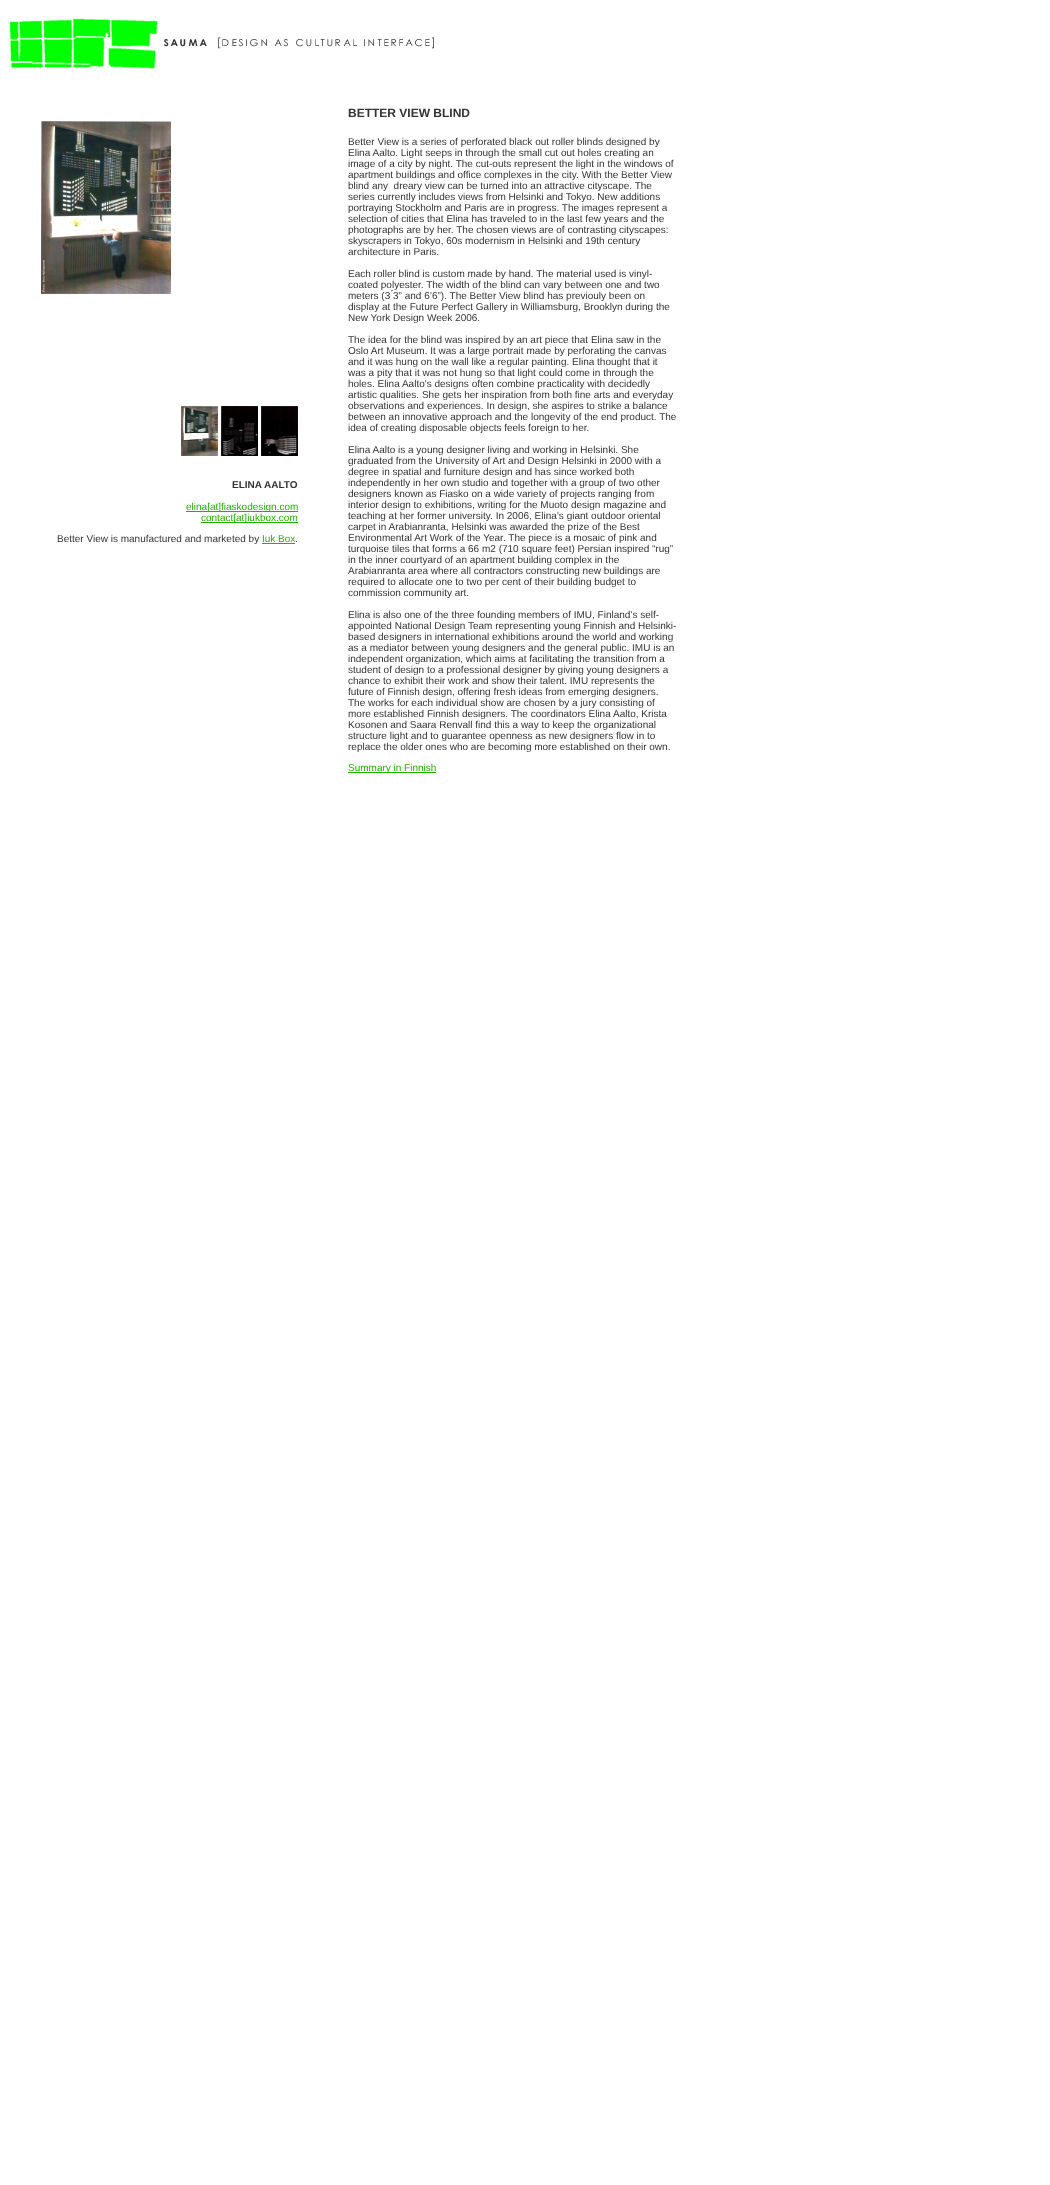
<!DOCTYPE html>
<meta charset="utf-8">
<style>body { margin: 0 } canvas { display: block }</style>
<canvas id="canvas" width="1050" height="2185"></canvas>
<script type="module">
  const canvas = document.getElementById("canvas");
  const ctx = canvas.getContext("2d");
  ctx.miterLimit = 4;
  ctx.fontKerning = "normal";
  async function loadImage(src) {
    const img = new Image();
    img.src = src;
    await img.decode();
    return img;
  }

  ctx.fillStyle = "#ffffff";
  ctx.fillRect(0, 0, 1050, 2185);
  ctx.drawImage(await loadImage("img1.png"), 9, 18, 425, 51);
  ctx.font = "bold 12px Liberation Sans";
  ctx.fillStyle = "#333333";
  ctx.fillText("BETTER VIEW BLIND", 348, 117);
  ctx.drawImage(await loadImage("img2.png"), 181, 406, 37, 50);
  ctx.drawImage(await loadImage("img3.png"), 221, 406, 37, 50);
  ctx.drawImage(await loadImage("img4.png"), 261, 406, 37, 50);
  ctx.font = "bold 10px Liberation Sans";
  ctx.fillText("ELINA AALTO", 232, 488);
  ctx.fillStyle = "#23b000";
  ctx.fillRect(186, 511, 112, 1);
  ctx.font = "10px Liberation Sans";
  ctx.fillText("elina[at]fiaskodesign.com", 186, 510);
  ctx.fillRect(201, 522, 97, 1);
  ctx.fillText("contact[at]iukbox.com", 201, 521);
  ctx.fillStyle = "#333333";
  ctx.fillText("Better View is manufactured and marketed by", 57, 542);
  ctx.fillStyle = "#23b000";
  ctx.fillText("Iuk Box", 262, 542);
  ctx.fillRect(262, 543, 33, 1);
  ctx.fillStyle = "#333333";
  ctx.fillText(".", 295, 542);
  ctx.fillText("Better View is a series of perforated black out roller blinds designed by", 348, 145);
  ctx.fillText("Elina Aalto. Light seeps in through the small cut out holes creating an", 348, 156);
  ctx.fillText("image of a city by night. The cut-outs represent the light in the windows of", 348, 167);
  ctx.fillText("apartment buildings and office complexes in the city. With the Better View", 348, 178);
  ctx.fillText("blind any  dreary view can be turned into an attractive cityscape. The", 348, 189);
  ctx.fillText("series currently includes views from Helsinki and Tokyo. New additions", 348, 200);
  ctx.fillText("portraying Stockholm and Paris are in progress. The images represent a", 348, 211);
  ctx.fillText("selection of cities that Elina has traveled to in the last few years and the", 348, 222);
  ctx.fillText("photographs are by her. The chosen views are of contrasting cityscapes:", 348, 233);
  ctx.fillText("skyscrapers in Tokyo, 60s modernism in Helsinki and 19th century", 348, 244);
  ctx.fillText("architecture in Paris.", 348, 255);
  ctx.fillText("Each roller blind is custom made by hand. The material used is vinyl-", 348, 277);
  ctx.fillText("coated polyester. The width of the blind can vary between one and two", 348, 288);
  ctx.fillText("meters (3 ́3” and 6’6”). The Better View blind has previouly been on", 348, 299);
  ctx.fillText("display at the Future Perfect Gallery in Williamsburg, Brooklyn during the", 348, 310);
  ctx.fillText("New York Design Week 2006.", 348, 321);
  ctx.fillText("The idea for the blind was inspired by an art piece that Elina saw in the", 348, 343);
  ctx.fillText("Oslo Art Museum. It was a large portrait made by perforating the canvas", 348, 354);
  ctx.fillText("and it was hung on the wall like a regular painting. Elina thought that it", 348, 365);
  ctx.fillText("was a pity that it was not hung so that light could come in through the", 348, 376);
  ctx.fillText("holes. Elina Aalto's designs often combine practicality with decidedly", 348, 387);
  ctx.fillText("artistic qualities. She gets her inspiration from both fine arts and everyday", 348, 398);
  ctx.fillText("observations and experiences. In design, she aspires to strike a balance", 348, 409);
  ctx.fillText("between an innovative approach and the longevity of the end product. The", 348, 420);
  ctx.fillText("idea of creating disposable objects feels foreign to her.", 348, 431);
  ctx.fillText("Elina Aalto is a young designer living and working in Helsinki. She", 348, 453);
  ctx.fillText("graduated from the University of Art and Design Helsinki in 2000 with a", 348, 464);
  ctx.fillText("degree in spatial and furniture design and has since worked both", 348, 475);
  ctx.fillText("independently in her own studio and together with a group of two other", 348, 486);
  ctx.fillText("designers known as Fiasko on a wide variety of projects ranging from", 348, 497);
  ctx.fillText("interior design to exhibitions, writing for the Muoto design magazine and", 348, 508);
  ctx.fillText("teaching at her former university. In 2006, Elina’s giant outdoor oriental", 348, 519);
  ctx.fillText("carpet in Arabianranta, Helsinki was awarded the prize of the Best", 348, 530);
  ctx.fillText("Environmental Art Work of the Year. The piece is a mosaic of pink and", 348, 541);
  ctx.fillText("turquoise tiles that forms a 66 m2 (710 square feet) Persian inspired “rug”", 348, 552);
  ctx.fillText("in the inner courtyard of an apartment building complex in the", 348, 563);
  ctx.fillText("Arabianranta area where all contractors constructing new buildings are", 348, 574);
  ctx.fillText("required to allocate one to two per cent of their building budget to", 348, 585);
  ctx.fillText("commission community art.", 348, 596);
  ctx.fillText("Elina is also one of the three founding members of IMU, Finland’s self-", 348, 618);
  ctx.fillText("appointed National Design Team representing young Finnish and Helsinki-", 348, 629);
  ctx.fillText("based designers in international exhibitions around the world and working", 348, 640);
  ctx.fillText("as a mediator between young designers and the general public. IMU is an", 348, 651);
  ctx.fillText("independent organization, which aims at facilitating the transition from a", 348, 662);
  ctx.fillText("student of design to a professional designer by giving young designers a", 348, 673);
  ctx.fillText("chance to exhibit their work and show their talent. IMU represents the", 348, 684);
  ctx.fillText("future of Finnish design, offering fresh ideas from emerging designers.", 348, 695);
  ctx.fillText("The works for each individual show are chosen by a jury consisting of", 348, 706);
  ctx.fillText("more established Finnish designers. The coordinators Elina Aalto, Krista", 348, 717);
  ctx.fillText("Kosonen and Saara Renvall find this a way to keep the organizational", 348, 728);
  ctx.fillText("structure light and to guarantee openness as new designers flow in to", 348, 739);
  ctx.fillText("replace the older ones who are becoming more established on their own.", 348, 750);
  ctx.fillStyle = "#23b000";
  ctx.fillRect(348, 772, 88, 1);
  ctx.fillText("Summary in Finnish", 348, 771);
  ctx.drawImage(await loadImage("img5.png"), 41, 121, 130, 173);
</script>
